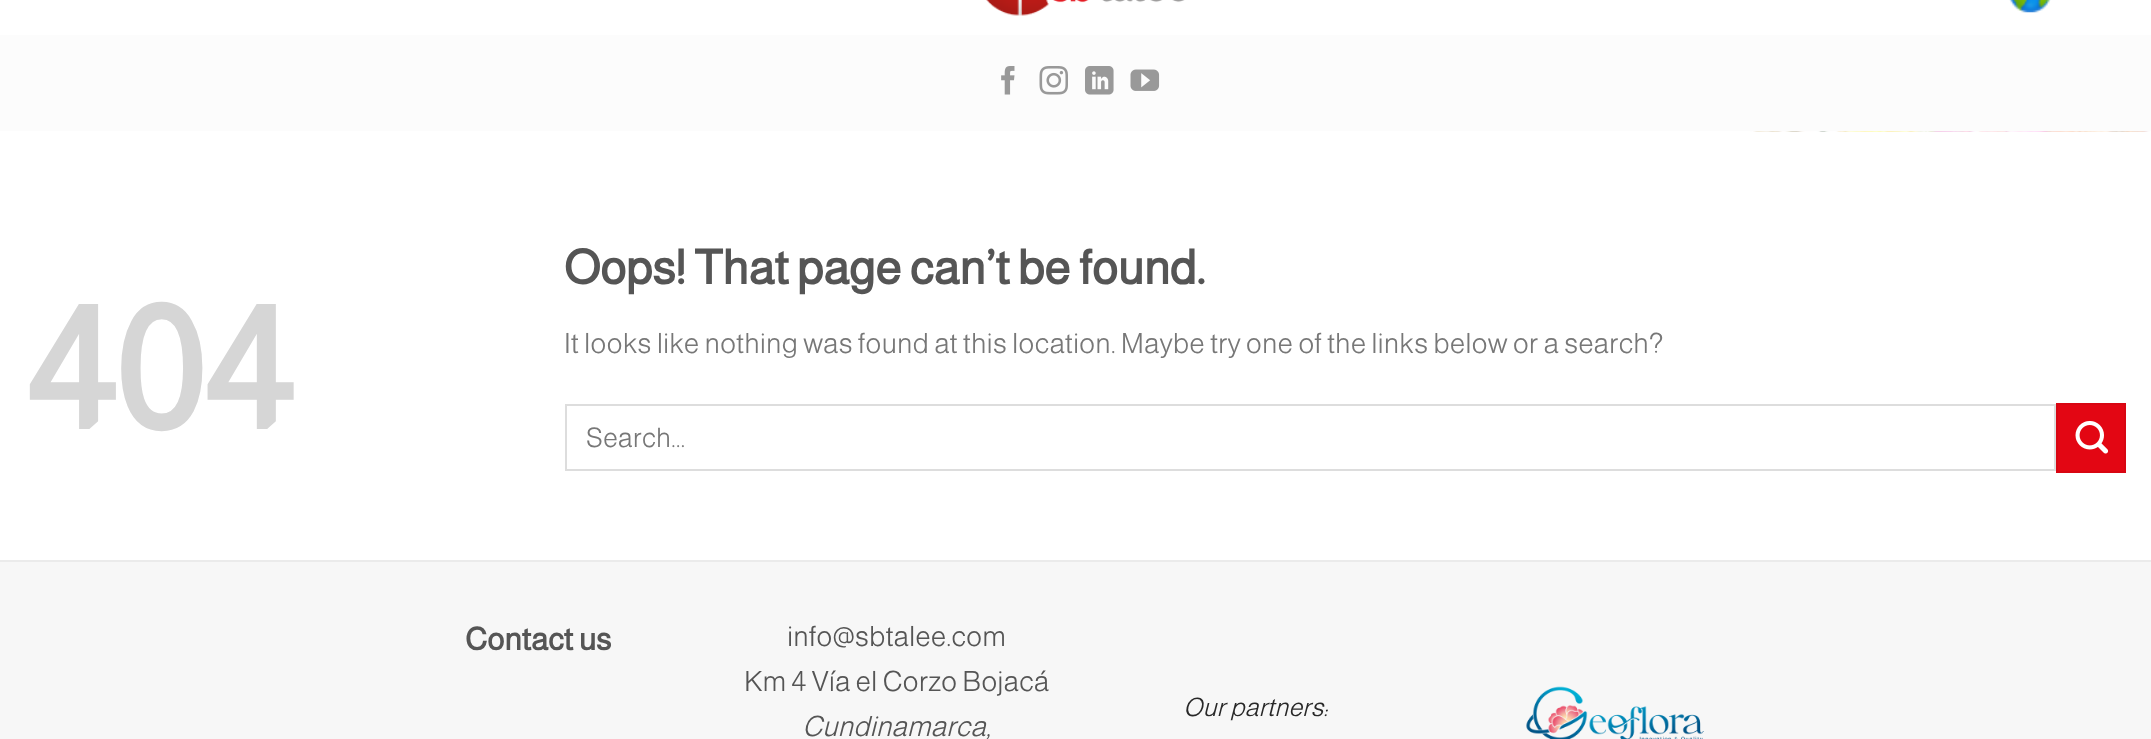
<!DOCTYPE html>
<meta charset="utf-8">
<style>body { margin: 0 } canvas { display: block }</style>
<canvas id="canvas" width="2151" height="739"></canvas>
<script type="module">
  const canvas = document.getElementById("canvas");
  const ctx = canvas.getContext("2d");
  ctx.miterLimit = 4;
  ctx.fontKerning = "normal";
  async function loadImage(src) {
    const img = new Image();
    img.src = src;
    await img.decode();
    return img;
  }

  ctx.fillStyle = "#ffffff";
  ctx.fillRect(0, 0, 2151, 739);
  ctx.drawImage(await loadImage("img1.png"), 986, 0, 199, 16);
  ctx.drawImage(await loadImage("img2.png"), 2009, 0, 42, 13);
  ctx.fillStyle = "#fcfcfc";
  ctx.fillRect(0, 35, 2151, 96);
  ctx.drawImage(await loadImage("img3.png"), 1001, 66, 14, 29);
  ctx.drawImage(await loadImage("img4.png"), 1039, 66, 29, 29);
  ctx.drawImage(await loadImage("img5.png"), 1085, 66, 29, 29);
  ctx.drawImage(await loadImage("img6.png"), 1130, 69, 30, 22);
  ctx.drawImage(await loadImage("img7.png"), 1745, 131, 406, 1);
  ctx.font = "bold 168px Almarai";
  ctx.fillStyle = "#d6d6d6";
  ctx.fillText("404", 26, 429);
  ctx.font = "bold 47.6px Almarai";
  ctx.fillStyle = "#555555";
  ctx.fillText("Oops! That page can’t be found.", 564, 284);
  ctx.font = "300 28px Almarai";
  ctx.fillStyle = "#777777";
  ctx.fillText("It looks like nothing was found at this location. Maybe try one of the links below or a search?", 564, 353);
  ctx.strokeStyle = "#dddddd";
  ctx.lineWidth = 2;
  ctx.strokeRect(566, 405, 1489, 65);
  ctx.font = "300 27px Almarai";
  ctx.fillText("Search...", 586, 447);
  ctx.fillStyle = "#e30613";
  ctx.beginPath();
  ctx.rect(2057, 404, 68, 68);
  ctx.fill();
  ctx.strokeStyle = "#d80612";
  ctx.stroke();
  ctx.drawImage(await loadImage("img8.png"), 2075, 420, 34, 34);
  ctx.fillStyle = "#f7f7f7";
  ctx.fillRect(0, 562, 2151, 177);
  ctx.fillStyle = "#ebebeb";
  ctx.fillRect(0, 560, 2151, 2);
  ctx.font = "bold 31.5px Almarai";
  ctx.fillStyle = "#555555";
  ctx.fillText("Contact us", 465, 650);
  ctx.font = "300 28px Almarai";
  ctx.fillText("info@sbtalee.com", 787, 646);
  ctx.fillText("Km 4 Vía el Corzo Bojacá", 744, 691);
  ctx.font = "italic 300 28px Almarai";
  ctx.fillText("Cundinamarca,", 802, 736);
  ctx.font = "italic 300 25.25px Almarai";
  ctx.fillStyle = "#282828";
  ctx.fillText("Our partners:", 1183, 716);
  ctx.drawImage(await loadImage("img9.png"), 1526, 686, 178, 53);
</script>
